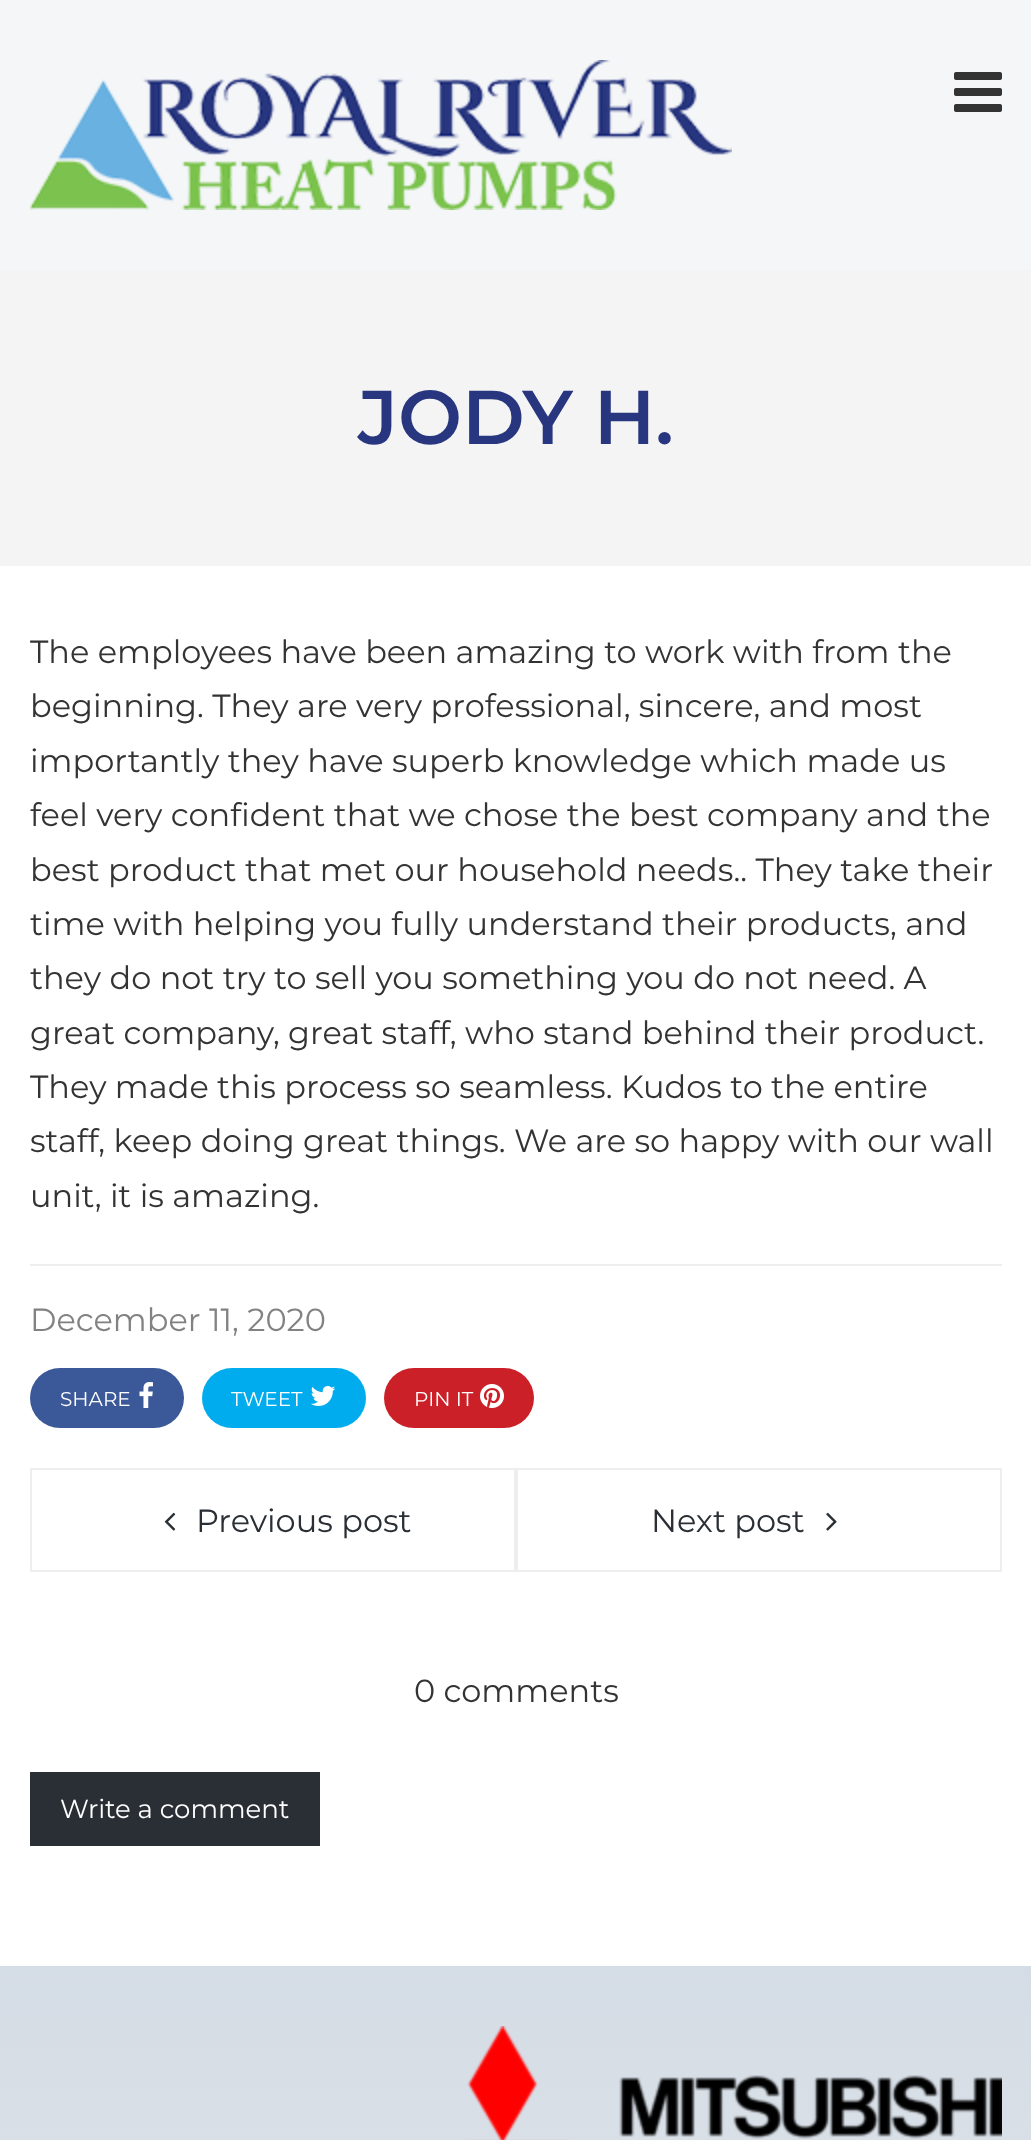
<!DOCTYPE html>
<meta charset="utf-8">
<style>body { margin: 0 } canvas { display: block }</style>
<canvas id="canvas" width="1031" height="2140"></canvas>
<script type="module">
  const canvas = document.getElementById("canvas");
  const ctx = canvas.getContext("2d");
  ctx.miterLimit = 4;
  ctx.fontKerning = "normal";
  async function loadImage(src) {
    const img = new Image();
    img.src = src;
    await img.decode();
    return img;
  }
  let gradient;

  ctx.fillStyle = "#ffffff";
  ctx.fillRect(0, 0, 1031, 2140);
  ctx.fillStyle = "#f4f6f8";
  ctx.fillRect(0, 0, 1031, 270);
  ctx.drawImage(await loadImage("img1.png"), 30, 60, 702, 150);
  ctx.drawImage(await loadImage("img2.png"), 954, 72, 48, 40);
  ctx.fillStyle = "#f4f4f4";
  ctx.fillRect(0, 270, 1031, 296);
  ctx.font = "600 76px Montserrat";
  ctx.fillStyle = "#28367f";
  ctx.fillText("JODY H.", 358, 444);
  ctx.fillStyle = "#eeeeee";
  ctx.fillRect(30, 1264, 972, 2);
  ctx.font = "32px Montserrat";
  ctx.fillStyle = "#333333";
  ctx.fillText("The employees have been amazing to work with from the", 30, 663);
  ctx.fillText("beginning. They are very professional, sincere, and most", 30, 717);
  ctx.fillText("importantly they have superb knowledge which made us", 30, 772);
  ctx.fillText("feel very confident that we chose the best company and the", 30, 826);
  ctx.fillText("best product that met our household needs.. They take their", 30, 881);
  ctx.fillText("time with helping you fully understand their products, and", 30, 935);
  ctx.fillText("they do not try to sell you something you do not need. A", 30, 989);
  ctx.fillText("great company, great staff, who stand behind their product.", 30, 1044);
  ctx.fillText("They made this process so seamless. Kudos to the entire", 30, 1098);
  ctx.fillText("staff, keep doing great things. We are so happy with our wall", 30, 1152);
  ctx.fillText("unit, it is amazing.", 30, 1207);
  ctx.fillStyle = "#828282";
  ctx.fillText("December 11, 2020", 30, 1331);
  ctx.fillStyle = "#3b5998";
  ctx.beginPath();
  ctx.roundRect(30, 1368, 154, 60, 30);
  ctx.fill();
  ctx.font = "20px Montserrat";
  ctx.fillStyle = "#ffffff";
  ctx.fillText("SHARE", 60, 1406);
  ctx.drawImage(await loadImage("img3.png"), 139, 1382, 14, 26);
  ctx.fillStyle = "#00aced";
  ctx.beginPath();
  ctx.roundRect(202, 1368, 164, 60, 30);
  ctx.fill();
  ctx.fillStyle = "#ffffff";
  ctx.fillText("TWEET", 231, 1406);
  ctx.drawImage(await loadImage("img4.png"), 310, 1386, 26, 20);
  ctx.fillStyle = "#cb2027";
  ctx.beginPath();
  ctx.roundRect(384, 1368, 150, 60, 30);
  ctx.fill();
  ctx.fillStyle = "#ffffff";
  ctx.fillText("PIN IT", 414, 1406);
  ctx.drawImage(await loadImage("img5.png"), 480, 1384, 24, 24);
  ctx.strokeStyle = "#eeeeee";
  ctx.lineWidth = 2;
  ctx.strokeRect(31, 1469, 970, 102);
  ctx.fillStyle = "#eeeeee";
  ctx.fillRect(514, 1470, 4, 100);
  ctx.drawImage(await loadImage("img6.png"), 164, 1512, 12, 19);
  ctx.font = "32px Montserrat";
  ctx.fillStyle = "#2a2f35";
  ctx.fillText("Previous post", 196, 1532);
  ctx.fillText("Next post", 651, 1532);
  ctx.drawImage(await loadImage("img7.png"), 826, 1512, 11, 19);
  ctx.fillStyle = "#333333";
  ctx.fillText("0 comments", 414, 1702);
  ctx.fillStyle = "#2a2f35";
  ctx.fillRect(30, 1772, 290, 74);
  ctx.font = "26px Montserrat";
  ctx.fillStyle = "#ffffff";
  ctx.fillText("Write a comment", 60, 1818);
  gradient = ctx.createLinearGradient(516, 1966, 516, 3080);
  gradient.addColorStop(0, "#d4dce5");
  gradient.addColorStop(1, "#f0f1f2");
  ctx.fillStyle = gradient;
  ctx.fillRect(0, 1966, 1031, 174);
  ctx.drawImage(await loadImage("img8.png"), 467, 2026, 535, 114);
</script>
